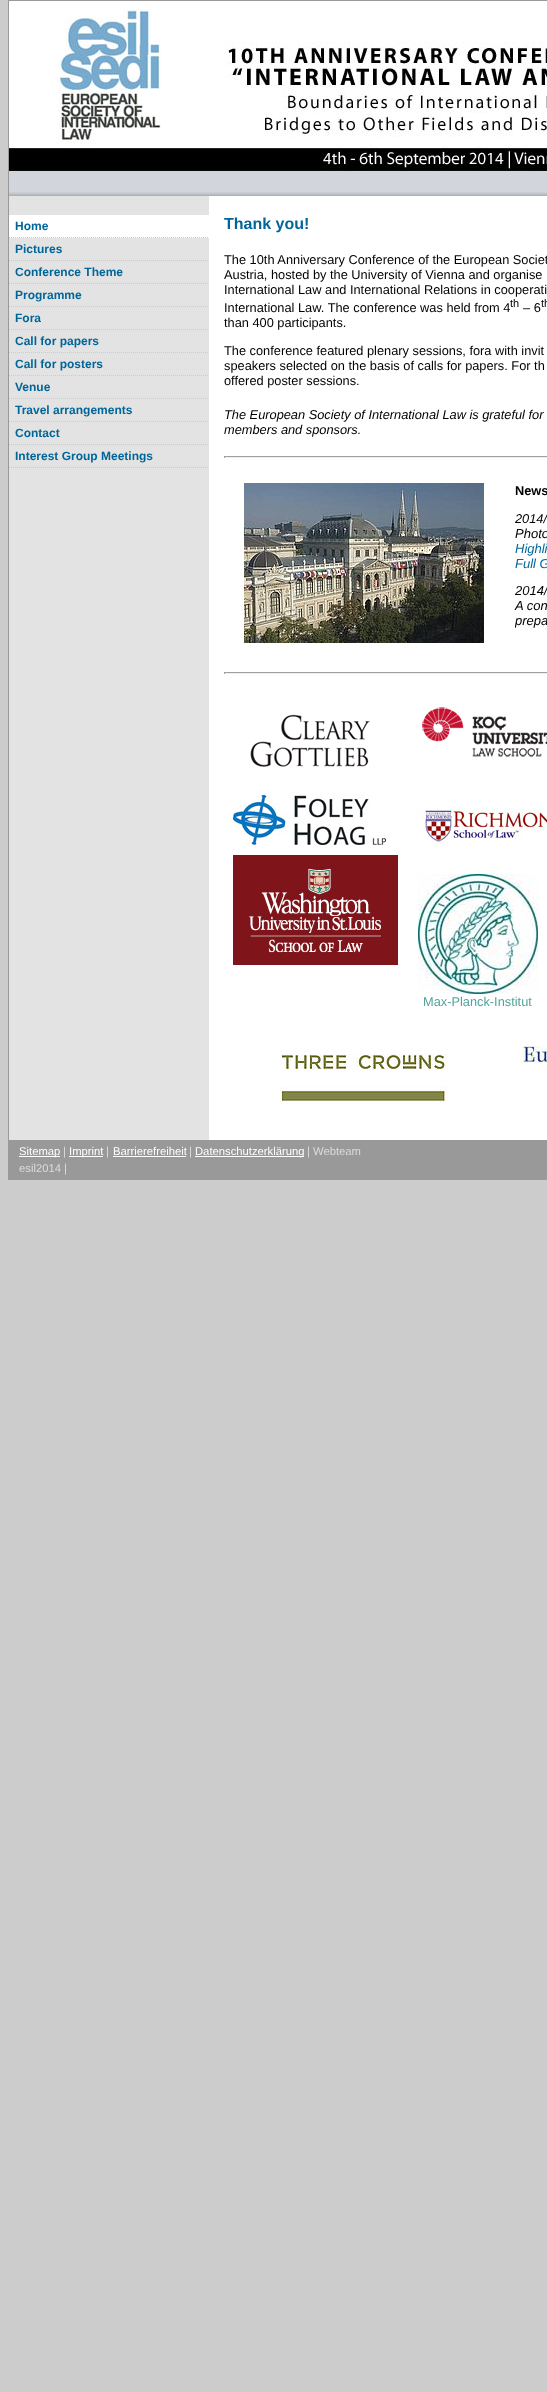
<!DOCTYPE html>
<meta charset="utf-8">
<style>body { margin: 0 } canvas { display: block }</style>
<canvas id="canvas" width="547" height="2392"></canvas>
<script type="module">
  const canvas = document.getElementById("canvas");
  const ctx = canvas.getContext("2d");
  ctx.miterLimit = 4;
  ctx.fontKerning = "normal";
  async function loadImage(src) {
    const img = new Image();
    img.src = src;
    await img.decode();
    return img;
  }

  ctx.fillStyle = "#cccccc";
  ctx.fillRect(0, 0, 547, 2392);
  ctx.fillStyle = "#ffffff";
  ctx.fillRect(9, 1, 538, 1139);
  ctx.strokeStyle = "#999999";
  ctx.strokeRect(8.5, 0.5, 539, 1179);
  ctx.drawImage(await loadImage("img1.png"), 9, 9, 538, 162);
  ctx.fillStyle = "#d2d5db";
  ctx.fillRect(9, 171, 538, 21);
  ctx.drawImage(await loadImage("img2.png"), 9, 192, 538, 4);
  ctx.fillStyle = "#e3e3e3";
  ctx.fillRect(9, 196, 200, 944);
  ctx.fillStyle = "#ffffff";
  ctx.fillRect(9, 215, 200, 23);
  ctx.beginPath();
  ctx.moveTo(9, 237.5);
  ctx.lineTo(209, 237.5);
  ctx.strokeStyle = "#cccccc";
  ctx.setLineDash([1, 1]);
  ctx.stroke();
  ctx.font = "bold 12px Liberation Sans";
  ctx.fillStyle = "#006699";
  ctx.fillText("Home", 15, 230);
  ctx.beginPath();
  ctx.moveTo(9, 260.5);
  ctx.lineTo(209, 260.5);
  ctx.stroke();
  ctx.fillText("Pictures", 15, 253);
  ctx.beginPath();
  ctx.moveTo(9, 283.5);
  ctx.lineTo(209, 283.5);
  ctx.stroke();
  ctx.fillText("Conference Theme", 15, 276);
  ctx.beginPath();
  ctx.moveTo(9, 306.5);
  ctx.lineTo(209, 306.5);
  ctx.stroke();
  ctx.fillText("Programme", 15, 299);
  ctx.beginPath();
  ctx.moveTo(9, 329.5);
  ctx.lineTo(209, 329.5);
  ctx.stroke();
  ctx.fillText("Fora", 15, 322);
  ctx.beginPath();
  ctx.moveTo(9, 352.5);
  ctx.lineTo(209, 352.5);
  ctx.stroke();
  ctx.fillText("Call for papers", 15, 345);
  ctx.beginPath();
  ctx.moveTo(9, 375.5);
  ctx.lineTo(209, 375.5);
  ctx.stroke();
  ctx.fillText("Call for posters", 15, 368);
  ctx.beginPath();
  ctx.moveTo(9, 398.5);
  ctx.lineTo(209, 398.5);
  ctx.stroke();
  ctx.fillText("Venue", 15, 391);
  ctx.beginPath();
  ctx.moveTo(9, 421.5);
  ctx.lineTo(209, 421.5);
  ctx.stroke();
  ctx.fillText("Travel arrangements", 15, 414);
  ctx.beginPath();
  ctx.moveTo(9, 444.5);
  ctx.lineTo(209, 444.5);
  ctx.stroke();
  ctx.fillText("Contact", 15, 437);
  ctx.beginPath();
  ctx.moveTo(9, 467.5);
  ctx.lineTo(209, 467.5);
  ctx.stroke();
  ctx.fillText("Interest Group Meetings", 15, 460);
  ctx.font = "bold 16px Liberation Sans";
  ctx.fillText("Thank you!", 224, 229);
  ctx.font = "12.8px Liberation Sans";
  ctx.fillStyle = "#000000";
  ctx.fillText("The 10th Anniversary Conference of the European Societ", 224, 264);
  ctx.fillText("Austria, hosted by the University of Vienna and organise", 224, 279);
  ctx.fillText("International Law and International Relations in cooperati", 224, 294);
  ctx.fillText("International Law. The conference was held from 4", 224, 312);
  ctx.font = "11px Liberation Sans";
  ctx.fillText("th", 510, 307);
  ctx.font = "12.8px Liberation Sans";
  ctx.fillText("– 6", 523, 312);
  ctx.font = "11px Liberation Sans";
  ctx.fillText("th", 541, 307);
  ctx.font = "12.8px Liberation Sans";
  ctx.fillText("than 400 participants.", 224, 327);
  ctx.fillText("The conference featured plenary sessions, fora with invit", 224, 355);
  ctx.fillText("speakers selected on the basis of calls for papers. For th", 224, 370);
  ctx.fillText("offered poster sessions.", 224, 385);
  ctx.font = "italic 12.8px Liberation Sans";
  ctx.fillText("The European Society of International Law is grateful for", 224, 419);
  ctx.fillText("members and sponsors.", 224, 434);
  ctx.fillStyle = "#9f9f9f";
  ctx.fillRect(224, 456, 323, 1);
  ctx.fillStyle = "#eeeeee";
  ctx.fillRect(224, 457, 323, 1);
  ctx.fillStyle = "#9f9f9f";
  ctx.fillRect(224, 456, 1, 2);
  ctx.drawImage(await loadImage("img3.png"), 244, 483, 240, 160);
  ctx.font = "bold 12.8px Liberation Sans";
  ctx.fillStyle = "#000000";
  ctx.fillText("News", 515, 495);
  ctx.font = "italic 12.8px Liberation Sans";
  ctx.fillText("2014/", 515, 523);
  ctx.font = "italic 13px Liberation Sans";
  ctx.fillText("Photo", 515, 538);
  ctx.fillStyle = "#006699";
  ctx.fillText("Highli", 515, 553);
  ctx.fillText("Full G", 515, 568);
  ctx.fillStyle = "#000000";
  ctx.fillText("2014/", 515, 595);
  ctx.fillText("A con", 515, 610);
  ctx.save();
  ctx.beginPath();
  ctx.rect(515, 464, 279, 177);
  ctx.clip();
  ctx.fillText("prepa", 515, 625);
  ctx.restore();
  ctx.fillStyle = "#9f9f9f";
  ctx.fillRect(224, 672, 323, 1);
  ctx.fillStyle = "#eeeeee";
  ctx.fillRect(224, 673, 323, 1);
  ctx.fillStyle = "#9f9f9f";
  ctx.fillRect(224, 672, 1, 2);
  ctx.drawImage(await loadImage("img4.png"), 250, 714, 120, 53);
  ctx.drawImage(await loadImage("img5.png"), 233, 795, 153, 50);
  ctx.drawImage(await loadImage("img6.png"), 233, 855, 165, 110);
  ctx.drawImage(await loadImage("img7.png"), 422, 707, 125, 50);
  ctx.drawImage(await loadImage("img8.png"), 418, 807, 129, 40);
  ctx.drawImage(await loadImage("img9.png"), 418, 874, 120, 120);
  ctx.font = "12.8px Liberation Sans";
  ctx.fillStyle = "#53a39b";
  ctx.fillText("Max-Planck-Institut", 423, 1006);
  ctx.drawImage(await loadImage("img10.png"), 280, 1054, 168, 48);
  ctx.drawImage(await loadImage("img11.png"), 523, 1046, 24, 16);
  ctx.fillStyle = "#999999";
  ctx.fillRect(9, 1140, 538, 39);
  ctx.fillStyle = "#ffffff";
  ctx.fillRect(19, 1156, 41, 1);
  ctx.font = "11.25px Liberation Sans";
  ctx.fillText("Sitemap", 19, 1155);
  ctx.fillStyle = "#dddddd";
  ctx.fillText("|", 63, 1155);
  ctx.fillStyle = "#ffffff";
  ctx.fillRect(69, 1156, 34, 1);
  ctx.fillText("Imprint", 69, 1155);
  ctx.fillStyle = "#dddddd";
  ctx.fillText("|", 106, 1155);
  ctx.fillStyle = "#ffffff";
  ctx.fillText("Barrierefreiheit", 113, 1155);
  ctx.fillRect(113, 1156, 73, 1);
  ctx.fillStyle = "#dddddd";
  ctx.fillText("|", 189, 1155);
  ctx.fillStyle = "#ffffff";
  ctx.fillRect(195, 1156, 109, 1);
  ctx.fillText("Datenschutzerklärung", 195, 1155);
  ctx.fillStyle = "#dddddd";
  ctx.fillText("| Webteam", 307, 1155);
  ctx.fillText("esil2014 |", 19, 1172);
</script>
